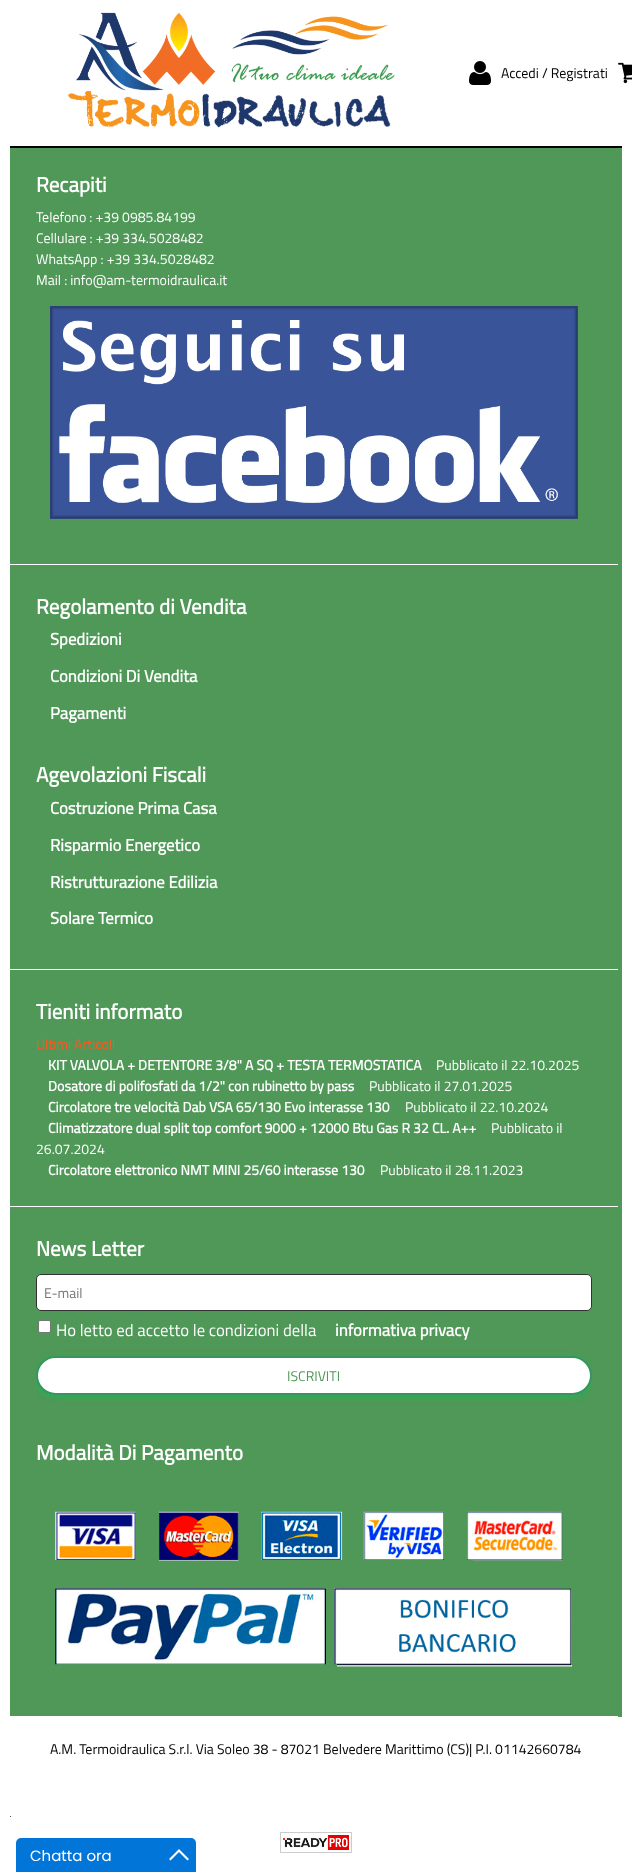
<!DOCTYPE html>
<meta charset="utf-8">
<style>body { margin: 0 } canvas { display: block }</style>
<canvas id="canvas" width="632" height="1872"></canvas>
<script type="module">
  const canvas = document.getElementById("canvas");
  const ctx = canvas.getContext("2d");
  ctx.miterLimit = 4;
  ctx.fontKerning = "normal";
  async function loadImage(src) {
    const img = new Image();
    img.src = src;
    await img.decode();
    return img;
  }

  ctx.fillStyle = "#ffffff";
  ctx.fillRect(0, 0, 632, 1872);
  ctx.fillStyle = "#000000";
  ctx.fillRect(10, 146, 612, 2);
  ctx.drawImage(await loadImage("img1.png"), 68, 12, 327, 116);
  ctx.drawImage(await loadImage("img2.png"), 469, 61, 22, 24);
  ctx.font = "14px Titillium Web";
  ctx.fillText("Accedi / Registrati", 501, 78);
  ctx.drawImage(await loadImage("img3.png"), 618, 62, 14, 22);
  ctx.fillStyle = "#4f9857";
  ctx.fillRect(10, 148, 612, 1569);
  ctx.fillStyle = "#ffffff";
  ctx.fillRect(10, 564, 608, 1);
  ctx.font = "bold 21px Titillium Web";
  ctx.fillText("Recapiti", 36, 192);
  ctx.font = "14px Titillium Web";
  ctx.fillText("Telefono : +39 0985.84199", 36, 222);
  ctx.fillText("Cellulare : +39 334.5028482", 36, 243);
  ctx.fillText("WhatsApp : +39 334.5028482", 36, 264);
  ctx.fillText("Mail : info@am-termoidraulica.it", 36, 285);
  ctx.drawImage(await loadImage("img4.png"), 50, 306, 528, 213);
  ctx.fillRect(10, 969, 608, 1);
  ctx.font = "bold 21px Titillium Web";
  ctx.fillText("Regolamento di Vendita", 36, 614);
  ctx.font = "bold 16.75px Titillium Web";
  ctx.fillText("Spedizioni", 50, 645);
  ctx.fillText("Condizioni Di Vendita", 50, 682);
  ctx.fillText("Pagamenti", 50, 719);
  ctx.font = "bold 21px Titillium Web";
  ctx.fillText("Agevolazioni Fiscali", 36, 782);
  ctx.font = "bold 16.75px Titillium Web";
  ctx.fillText("Costruzione Prima Casa", 50, 814);
  ctx.fillText("Risparmio Energetico", 50, 851);
  ctx.fillText("Ristrutturazione Edilizia", 50, 888);
  ctx.fillText("Solare Termico", 50, 924);
  ctx.fillRect(10, 1206, 608, 1);
  ctx.font = "bold 21px Titillium Web";
  ctx.fillText("Tieniti informato", 36, 1019);
  ctx.font = "14px Titillium Web";
  ctx.fillStyle = "#ff5722";
  ctx.fillText("Ultimi Articoli", 36, 1049);
  ctx.font = "bold 14px Titillium Web";
  ctx.fillStyle = "#ffffff";
  ctx.fillText("KIT VALVOLA + DETENTORE 3/8\" A SQ + TESTA TERMOSTATICA", 48, 1070);
  ctx.font = "14px Titillium Web";
  ctx.fillText("Pubblicato il 22.10.2025", 436, 1070);
  ctx.font = "bold 14px Titillium Web";
  ctx.fillText("Dosatore di polifosfati da 1/2\" con rubinetto by pass", 48, 1091);
  ctx.font = "14px Titillium Web";
  ctx.fillText("Pubblicato il 27.01.2025", 369, 1091);
  ctx.font = "bold 14px Titillium Web";
  ctx.fillText("Circolatore tre velocità Dab VSA 65/130 Evo interasse 130", 48, 1112);
  ctx.font = "14px Titillium Web";
  ctx.fillText("Pubblicato il 22.10.2024", 405, 1112);
  ctx.font = "bold 14px Titillium Web";
  ctx.fillText("Climatizzatore dual split top comfort 9000 + 12000 Btu Gas R 32 CL. A++", 48, 1133);
  ctx.font = "14px Titillium Web";
  ctx.fillText("Pubblicato il", 491, 1133);
  ctx.fillText("26.07.2024", 36, 1154);
  ctx.font = "bold 14px Titillium Web";
  ctx.fillText("Circolatore elettronico NMT MINI 25/60 interasse 130", 48, 1175);
  ctx.font = "14px Titillium Web";
  ctx.fillText("Pubblicato il 28.11.2023", 380, 1175);
  ctx.fillRect(10, 1716, 608, 1);
  ctx.font = "bold 21px Titillium Web";
  ctx.fillText("News Letter", 36, 1256);
  ctx.beginPath();
  ctx.roundRect(36.5, 1274.5, 555, 36, 4.5);
  ctx.fill();
  ctx.strokeStyle = "#333333";
  ctx.stroke();
  ctx.font = "14px Titillium Web";
  ctx.fillStyle = "#757575";
  ctx.fillText("E-mail", 44, 1298);
  ctx.fillStyle = "#ffffff";
  ctx.beginPath();
  ctx.roundRect(38.5, 1320.5, 12, 12, 1.5);
  ctx.fill();
  ctx.strokeStyle = "#767676";
  ctx.stroke();
  ctx.font = "16.75px Titillium Web";
  ctx.fillText("Ho letto ed accetto le condizioni della", 56, 1336);
  ctx.font = "bold 16.75px Titillium Web";
  ctx.fillText("informativa privacy", 335, 1336);
  ctx.save();
  ctx.beginPath();
  ctx.rect(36, 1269, 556, 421);
  ctx.clip();
  ctx.fillStyle = "rgba(0, 200, 83, 0.5)";
  ctx.filter = "blur(3px)";
  ctx.beginPath();
  ctx.roundRect(36, 1358, 556, 39, 19.5);
  ctx.fill();
  ctx.filter = "none";
  ctx.restore();
  ctx.beginPath();
  ctx.roundRect(37, 1357, 554, 37, 18.5);
  ctx.fill();
  ctx.strokeStyle = "#37965f";
  ctx.lineWidth = 2;
  ctx.stroke();
  ctx.font = "14px Titillium Web";
  ctx.fillStyle = "#4f9857";
  ctx.fillText("ISCRIVITI", 287, 1381);
  ctx.font = "bold 21px Titillium Web";
  ctx.fillStyle = "#ffffff";
  ctx.fillText("Modalità Di Pagamento", 36, 1460);
  ctx.drawImage(await loadImage("img5.png"), 55, 1511, 517, 156);
  ctx.font = "14px Titillium Web";
  ctx.fillStyle = "#000000";
  ctx.fillText("A.M. Termoidraulica S.r.l. Via Soleo 38 - 87021 Belvedere Marittimo (CS)| P.I. 01142660784", 50, 1754);
  ctx.fillStyle = "#4d4d4d";
  ctx.fillRect(10, 1816, 1, 1);
  ctx.strokeStyle = "#cccccc";
  ctx.lineWidth = 1;
  ctx.strokeRect(280.5, 1832.5, 71, 20);
  ctx.drawImage(await loadImage("img6.png"), 283, 1835, 66, 15);
  ctx.fillStyle = "#0275d8";
  ctx.beginPath();
  ctx.roundRect(16, 1838, 180, 34, [5, 5, 0, 0]);
  ctx.fill();
  ctx.font = "15px Poppins";
  ctx.fillStyle = "#ffffff";
  ctx.fillText("Chatta ora", 30, 1861);
  ctx.beginPath();
  ctx.moveTo(179, 1849);
  ctx.lineTo(189, 1859);
  ctx.lineTo(187.5, 1860.5);
  ctx.lineTo(179, 1852);
  ctx.lineTo(170.5, 1860.5);
  ctx.lineTo(169, 1859);
  ctx.closePath();
  ctx.fill();
</script>
